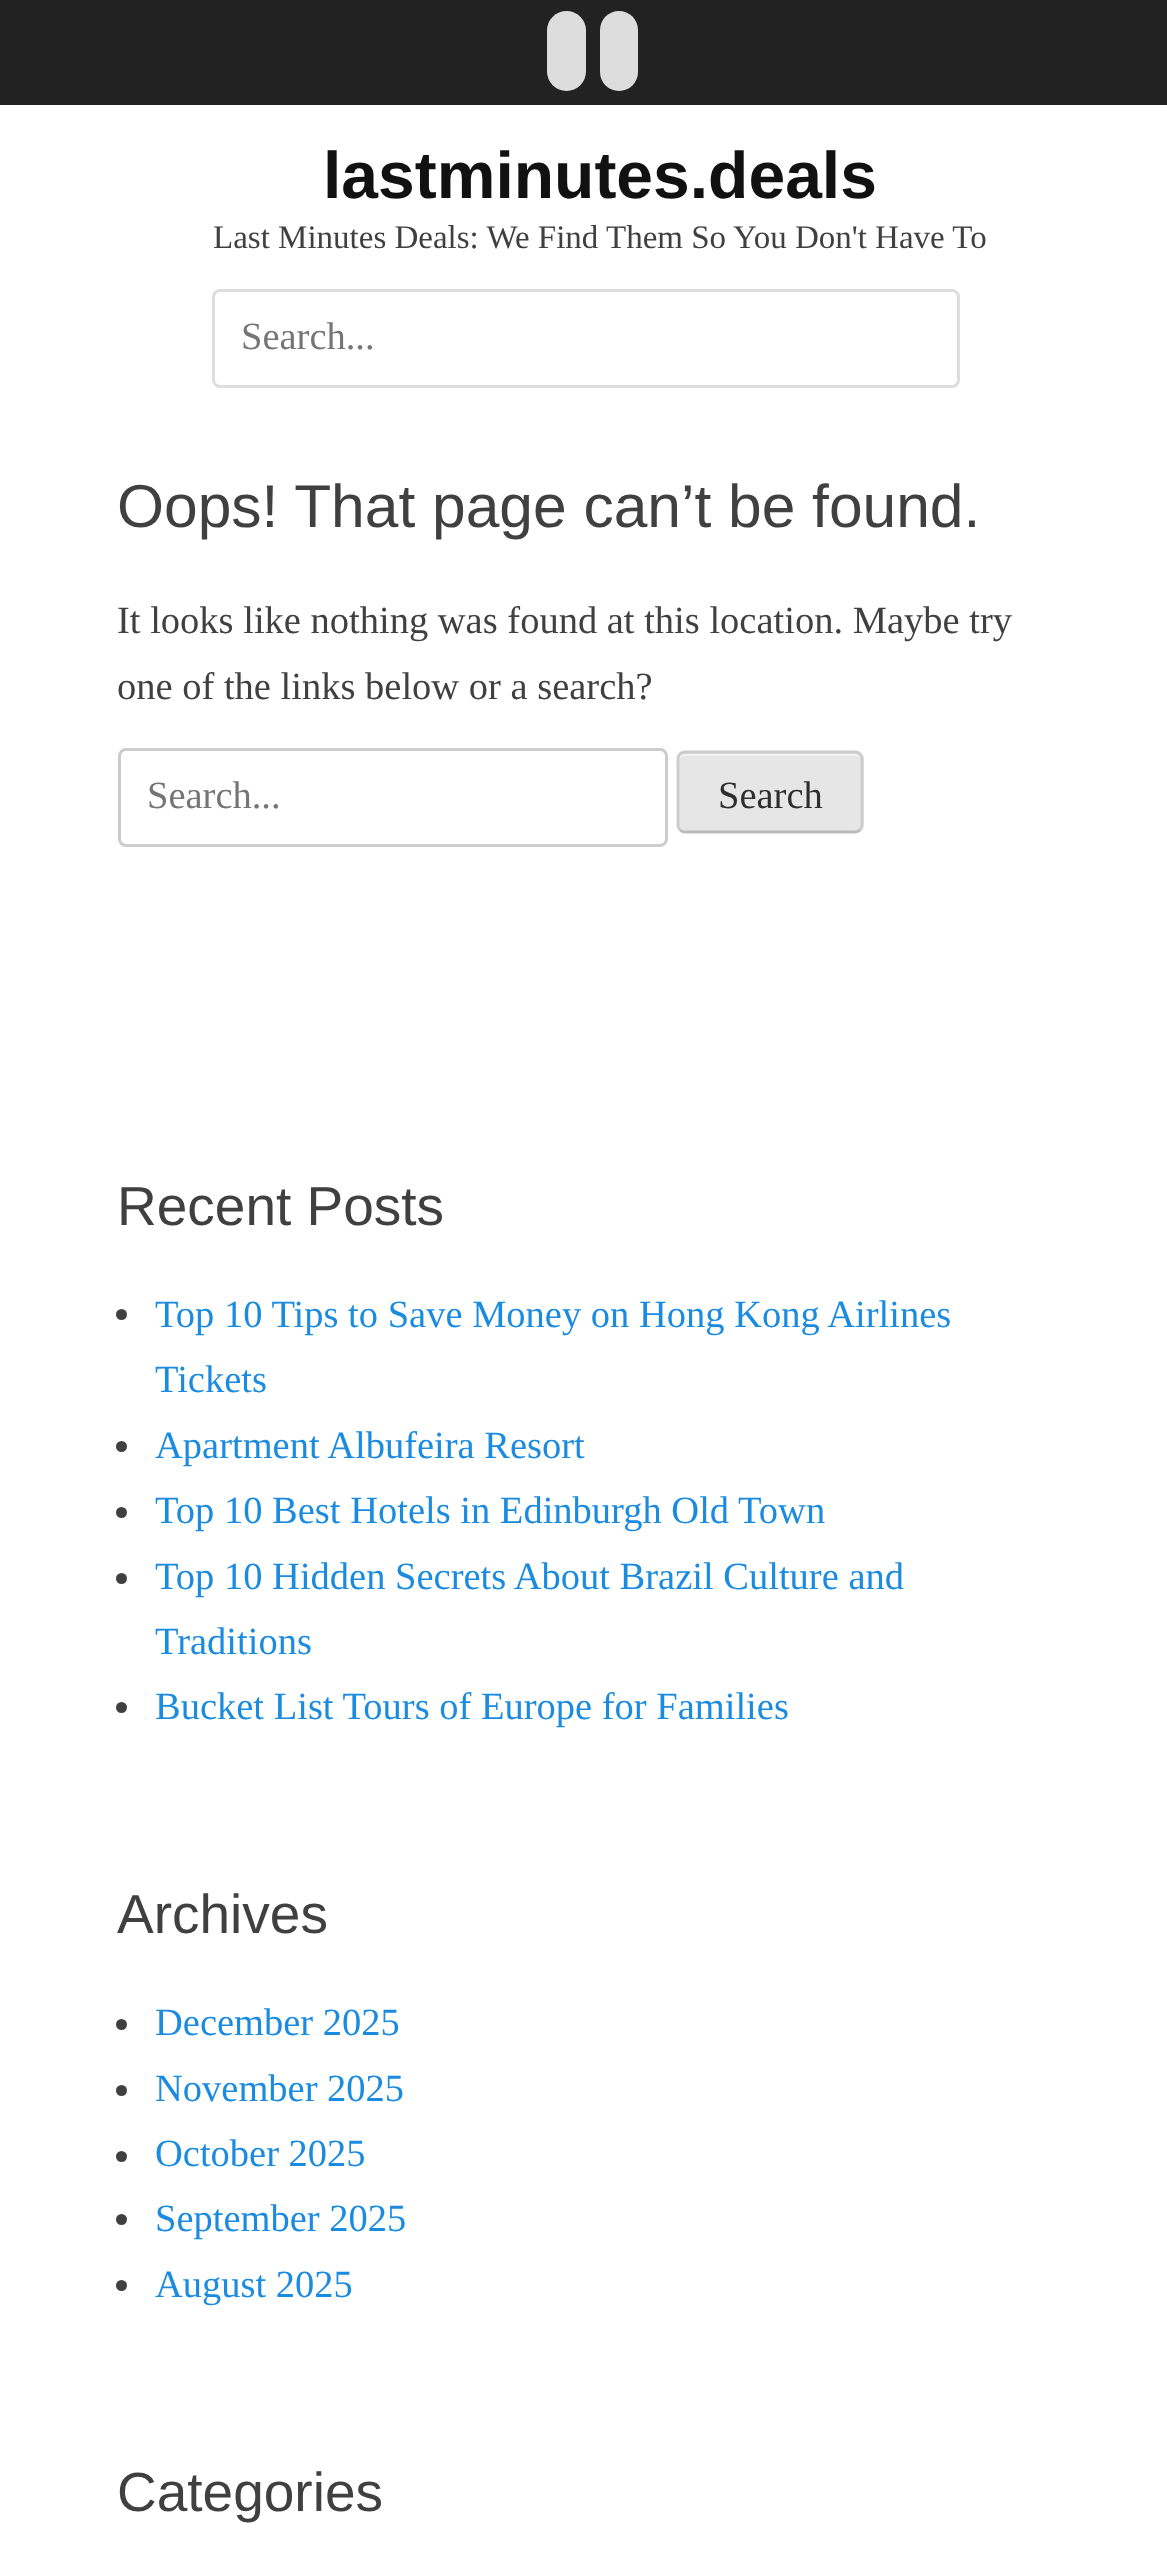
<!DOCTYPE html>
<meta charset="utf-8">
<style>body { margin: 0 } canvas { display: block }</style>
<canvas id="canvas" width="1167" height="2571"></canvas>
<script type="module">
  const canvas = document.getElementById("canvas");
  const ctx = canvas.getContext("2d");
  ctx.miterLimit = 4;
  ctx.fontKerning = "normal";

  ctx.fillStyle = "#222222";
  ctx.fillRect(0, 0, 1167, 2571);
  ctx.fillStyle = "#dddddd";
  ctx.beginPath();
  ctx.roundRect(547, 11, 39, 80, 19.5);
  ctx.fill();
  ctx.beginPath();
  ctx.roundRect(600, 11, 38, 80, 19);
  ctx.fill();
  ctx.fillStyle = "#ffffff";
  ctx.fillRect(0, 105, 1167, 2466);
  ctx.font = "bold 66px Liberation Sans";
  ctx.fillStyle = "#111111";
  ctx.fillText("lastminutes.deals", 323, 198);
  ctx.font = "33px Liberation Serif";
  ctx.fillStyle = "#404040";
  ctx.fillText("Last Minutes Deals: We Find Them So You Don't Have To", 213, 248);
  ctx.beginPath();
  ctx.roundRect(213.5, 290.5, 745, 96, 6.5);
  ctx.strokeStyle = "#dddddd";
  ctx.lineWidth = 3;
  ctx.stroke();
  ctx.font = "38.5px Liberation Serif";
  ctx.fillStyle = "#757575";
  ctx.fillText("Search...", 241, 349);
  ctx.font = "60.5px Liberation Sans";
  ctx.fillStyle = "#404040";
  ctx.fillText("Oops! That page can’t be found.", 117, 527);
  ctx.font = "38.5px Liberation Serif";
  ctx.fillText("It looks like nothing was found at this location. Maybe try", 117, 633);
  ctx.fillText("one of the links below or a search?", 117, 699);
  ctx.beginPath();
  ctx.roundRect(119.5, 749.5, 547, 96, 6.5);
  ctx.strokeStyle = "#cccccc";
  ctx.stroke();
  ctx.fillStyle = "#757575";
  ctx.fillText("Search...", 147, 808);
  ctx.fillStyle = "#e6e6e6";
  ctx.beginPath();
  ctx.roundRect(677, 751, 187, 82, 8);
  ctx.fill();
  ctx.fillStyle = "#f3f3f3";
  ctx.beginPath();
  ctx.moveTo(685, 756);
  ctx.lineTo(855, 756);
  ctx.bezierCurveTo(858, 756, 861, 759, 861, 762);
  ctx.lineTo(861, 760);
  ctx.bezierCurveTo(861, 757, 858, 754, 855, 754);
  ctx.lineTo(685, 754);
  ctx.bezierCurveTo(682, 754, 679, 757, 679, 760);
  ctx.lineTo(679, 762);
  ctx.bezierCurveTo(679, 759, 682, 756, 685, 756);
  ctx.closePath();
  ctx.fill();
  ctx.beginPath();
  ctx.moveTo(860, 830);
  ctx.bezierCurveTo(859, 831, 857, 832, 855, 832);
  ctx.lineTo(685, 832);
  ctx.bezierCurveTo(683, 832, 681, 831, 680, 830);
  ctx.strokeStyle = "#bbbbbb";
  ctx.lineWidth = 2.8;
  ctx.stroke();
  ctx.beginPath();
  ctx.moveTo(680, 830);
  ctx.bezierCurveTo(678.5, 828.5, 678, 827, 678, 825);
  ctx.lineTo(678, 759);
  ctx.bezierCurveTo(678, 757, 678.5, 755.5, 680, 754);
  ctx.bezierCurveTo(681, 753, 683, 752, 685, 752);
  ctx.lineTo(855, 752);
  ctx.bezierCurveTo(857, 752, 859, 753, 860, 754);
  ctx.bezierCurveTo(861.5, 755.5, 862, 757, 862, 759);
  ctx.lineTo(862, 825);
  ctx.bezierCurveTo(862, 827, 861.5, 828.5, 860, 830);
  ctx.strokeStyle = "#cccccc";
  ctx.stroke();
  ctx.fillStyle = "#2e2e2e";
  ctx.fillText("Search", 718, 808);
  ctx.font = "55px Liberation Sans";
  ctx.fillStyle = "#404040";
  ctx.fillText("Recent Posts", 117, 1225);
  ctx.beginPath();
  ctx.arc(121.5, 1314.5, 5.5, 0, Math.PI * 2);
  ctx.fill();
  ctx.font = "38.5px Liberation Serif";
  ctx.fillStyle = "#1b8be0";
  ctx.fillText("Top 10 Tips to Save Money on Hong Kong Airlines", 155, 1327);
  ctx.fillText("Tickets", 155, 1392);
  ctx.fillStyle = "#404040";
  ctx.beginPath();
  ctx.arc(121.5, 1446.5, 5.5, 0, Math.PI * 2);
  ctx.fill();
  ctx.fillStyle = "#1b8be0";
  ctx.fillText("Apartment Albufeira Resort", 155, 1458);
  ctx.fillStyle = "#404040";
  ctx.beginPath();
  ctx.arc(121.5, 1512.5, 5.5, 0, Math.PI * 2);
  ctx.fill();
  ctx.fillStyle = "#1b8be0";
  ctx.fillText("Top 10 Best Hotels in Edinburgh Old Town", 155, 1523);
  ctx.fillStyle = "#404040";
  ctx.beginPath();
  ctx.arc(121.5, 1578.5, 5.5, 0, Math.PI * 2);
  ctx.fill();
  ctx.fillStyle = "#1b8be0";
  ctx.fillText("Top 10 Hidden Secrets About Brazil Culture and", 155, 1589);
  ctx.fillText("Traditions", 155, 1654);
  ctx.fillStyle = "#404040";
  ctx.beginPath();
  ctx.arc(121.5, 1707.5, 5.5, 0, Math.PI * 2);
  ctx.fill();
  ctx.fillStyle = "#1b8be0";
  ctx.fillText("Bucket List Tours of Europe for Families", 155, 1719);
  ctx.font = "55px Liberation Sans";
  ctx.fillStyle = "#404040";
  ctx.fillText("Archives", 117, 1933);
  ctx.beginPath();
  ctx.arc(121.5, 2024.5, 5.5, 0, Math.PI * 2);
  ctx.fill();
  ctx.font = "38.5px Liberation Serif";
  ctx.fillStyle = "#1b8be0";
  ctx.fillText("December 2025", 155, 2035);
  ctx.fillStyle = "#404040";
  ctx.beginPath();
  ctx.arc(121.5, 2090.5, 5.5, 0, Math.PI * 2);
  ctx.fill();
  ctx.fillStyle = "#1b8be0";
  ctx.fillText("November 2025", 155, 2101);
  ctx.fillStyle = "#404040";
  ctx.beginPath();
  ctx.arc(121.5, 2156.5, 5.5, 0, Math.PI * 2);
  ctx.fill();
  ctx.fillStyle = "#1b8be0";
  ctx.fillText("October 2025", 155, 2166);
  ctx.fillStyle = "#404040";
  ctx.beginPath();
  ctx.arc(121.5, 2219.5, 5.5, 0, Math.PI * 2);
  ctx.fill();
  ctx.fillStyle = "#1b8be0";
  ctx.fillText("September 2025", 155, 2231);
  ctx.fillStyle = "#404040";
  ctx.beginPath();
  ctx.arc(121.5, 2285.5, 5.5, 0, Math.PI * 2);
  ctx.fill();
  ctx.fillStyle = "#1b8be0";
  ctx.fillText("August 2025", 155, 2297);
  ctx.font = "55px Liberation Sans";
  ctx.fillStyle = "#404040";
  ctx.fillText("Categories", 117, 2511);
</script>
